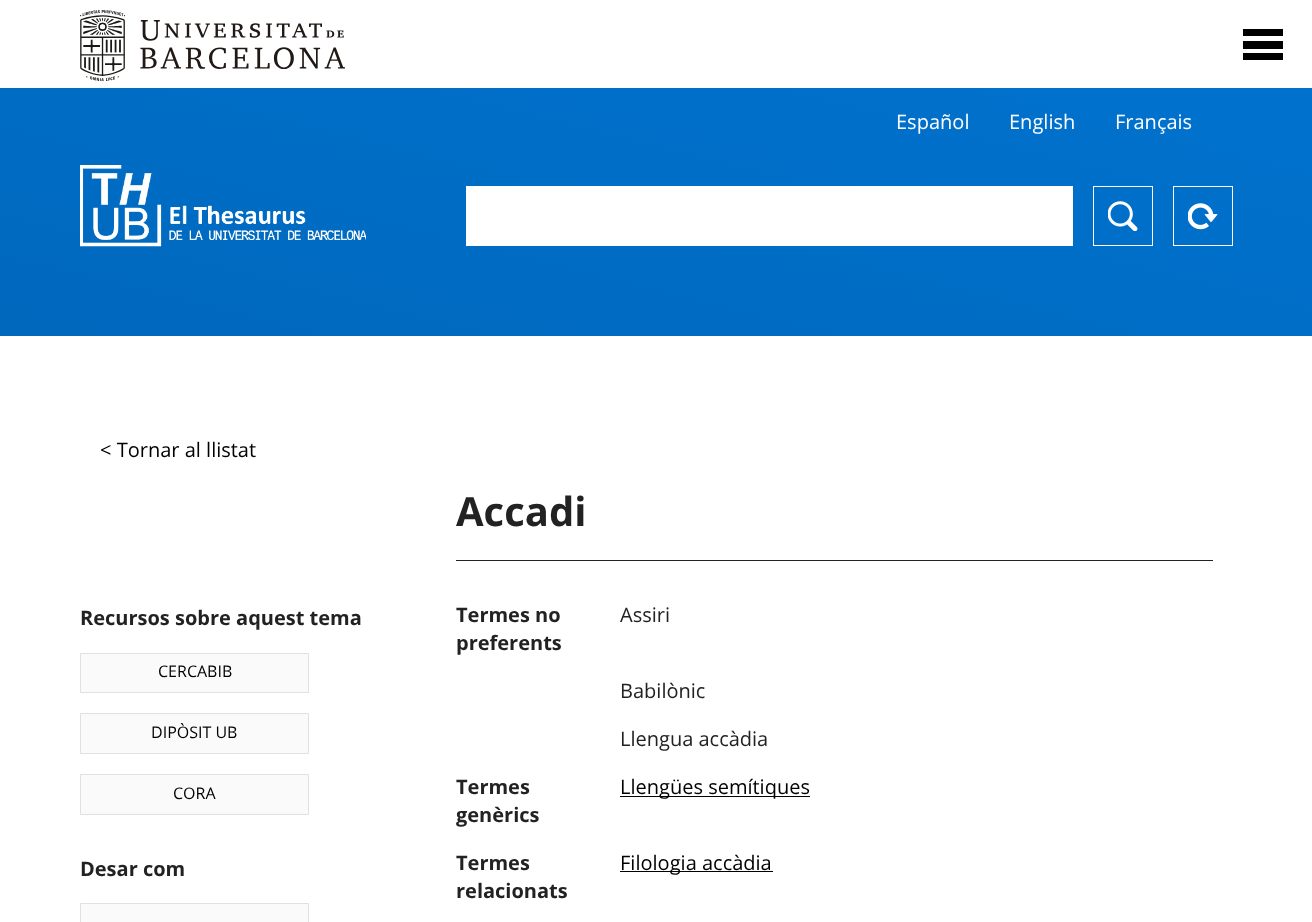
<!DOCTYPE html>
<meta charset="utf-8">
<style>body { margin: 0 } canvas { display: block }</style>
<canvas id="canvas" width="1312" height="922"></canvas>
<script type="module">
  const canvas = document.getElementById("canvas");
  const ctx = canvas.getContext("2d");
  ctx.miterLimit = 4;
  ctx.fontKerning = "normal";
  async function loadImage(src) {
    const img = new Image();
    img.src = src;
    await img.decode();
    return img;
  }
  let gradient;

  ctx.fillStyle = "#ffffff";
  ctx.fillRect(0, 0, 1312, 922);
  ctx.drawImage(await loadImage("img1.png"), 80, 10, 265, 71);
  ctx.fillStyle = "#000000";
  ctx.fillRect(1243, 41, 40, 8);
  ctx.fillRect(1243, 29, 40, 7);
  ctx.fillRect(1243, 53, 40, 7);
  gradient = ctx.createLinearGradient(724, -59, 589, 483);
  gradient.addColorStop(0, "#0072ce");
  gradient.addColorStop(1, "#0068bd");
  ctx.fillStyle = gradient;
  ctx.fillRect(0, 88, 1312, 248);
  ctx.font = "20px Open Sans";
  ctx.fillStyle = "#ffffff";
  ctx.fillText("Español", 896, 129);
  ctx.fillText("English", 1009, 129);
  ctx.fillText("Français", 1115, 129);
  ctx.drawImage(await loadImage("img2.png"), 80, 165, 286, 82);
  ctx.fillRect(466, 186, 607, 60);
  ctx.drawImage(await loadImage("img3.png"), 1108, 201, 30, 30);
  ctx.strokeStyle = "#ffffff";
  ctx.strokeRect(1093.5, 186.5, 59, 59);
  ctx.drawImage(await loadImage("img4.png"), 1188, 203, 30, 27);
  ctx.strokeRect(1173.5, 186.5, 59, 59);
  ctx.fillStyle = "#000000";
  ctx.fillText("< Tornar al llistat", 100, 457);
  ctx.font = "bold 20px Open Sans";
  ctx.fillStyle = "#222222";
  ctx.fillText("Recursos sobre aquest tema", 80, 625);
  ctx.fillStyle = "#fafafa";
  ctx.beginPath();
  ctx.rect(80.5, 653.5, 228, 39);
  ctx.fill();
  ctx.strokeStyle = "#e1e1e1";
  ctx.stroke();
  ctx.font = "16px Open Sans";
  ctx.fillStyle = "#000000";
  ctx.fillText("CERCABIB", 158, 677);
  ctx.fillStyle = "#fafafa";
  ctx.beginPath();
  ctx.rect(80.5, 713.5, 228, 40);
  ctx.fill();
  ctx.stroke();
  ctx.fillStyle = "#000000";
  ctx.fillText("DIPÒSIT UB", 151, 738);
  ctx.fillStyle = "#fafafa";
  ctx.beginPath();
  ctx.rect(80.5, 774.5, 228, 40);
  ctx.fill();
  ctx.stroke();
  ctx.fillStyle = "#000000";
  ctx.fillText("CORA", 173, 799);
  ctx.font = "bold 20px Open Sans";
  ctx.fillStyle = "#222222";
  ctx.fillText("Desar com", 80, 876);
  ctx.fillStyle = "#fafafa";
  ctx.beginPath();
  ctx.rect(80.5, 903.5, 228, 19);
  ctx.fill();
  ctx.stroke();
  ctx.fillStyle = "#222222";
  ctx.fillRect(456, 560, 757, 1);
  ctx.font = "bold 40px Open Sans";
  ctx.fillText("Accadi", 456, 526);
  ctx.font = "bold 20px Open Sans";
  ctx.fillText("Termes no", 456, 622);
  ctx.fillText("preferents", 456, 650);
  ctx.font = "20px Open Sans";
  ctx.fillText("Assiri", 620, 622);
  ctx.fillText("Babilònic", 620, 698);
  ctx.fillText("Llengua accàdia", 620, 746);
  ctx.font = "bold 20px Open Sans";
  ctx.fillText("Termes", 456, 794);
  ctx.fillText("genèrics", 456, 822);
  ctx.fillStyle = "#000000";
  ctx.fillRect(620, 796, 190, 1);
  ctx.font = "20px Open Sans";
  ctx.fillText("Llengües semítiques", 620, 794);
  ctx.font = "bold 20px Open Sans";
  ctx.fillStyle = "#222222";
  ctx.fillText("Termes", 456, 870);
  ctx.fillText("relacionats", 456, 898);
  ctx.fillStyle = "#000000";
  ctx.fillRect(620, 871, 153, 1);
  ctx.font = "20px Open Sans";
  ctx.fillText("Filologia accàdia", 620, 870);
</script>
